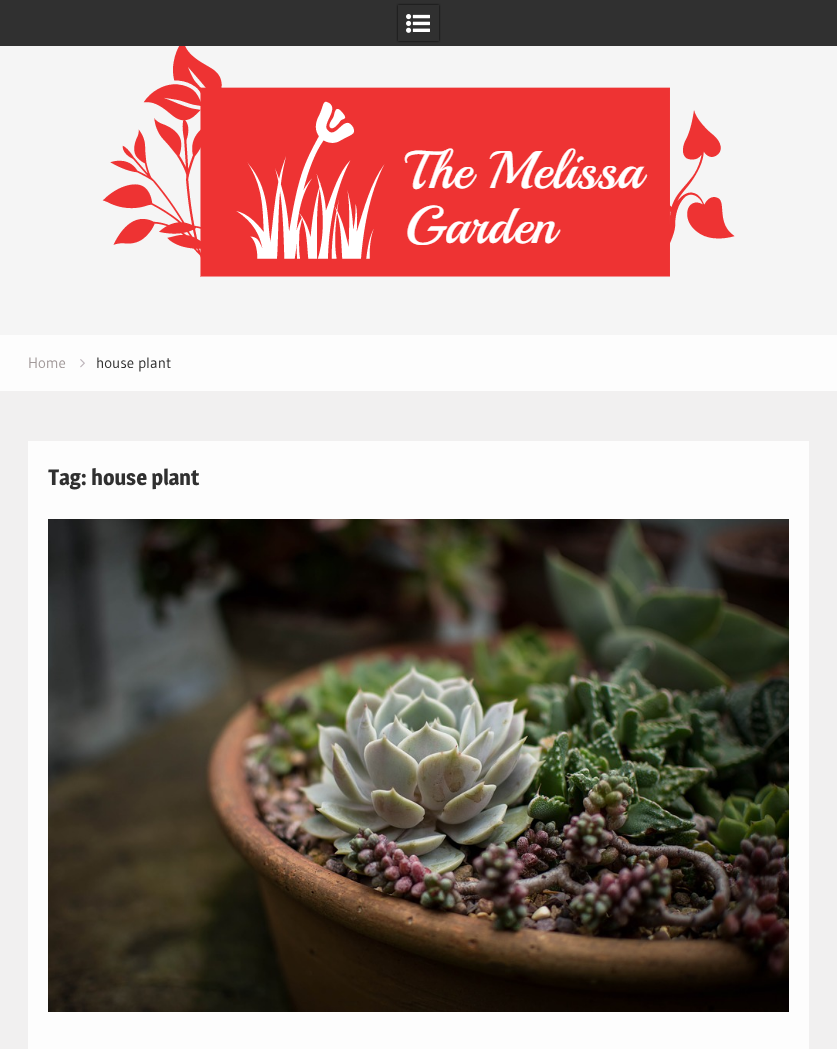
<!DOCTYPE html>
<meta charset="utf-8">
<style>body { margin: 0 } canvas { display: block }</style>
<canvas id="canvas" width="837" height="1049"></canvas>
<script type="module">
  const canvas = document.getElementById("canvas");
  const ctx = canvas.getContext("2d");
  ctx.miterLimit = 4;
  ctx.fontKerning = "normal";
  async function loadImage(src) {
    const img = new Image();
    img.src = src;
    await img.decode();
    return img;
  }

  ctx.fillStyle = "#f1f0f0";
  ctx.fillRect(0, 0, 837, 1049);
  ctx.fillStyle = "#303030";
  ctx.fillRect(0, 0, 837, 46);
  ctx.save();
  ctx.beginPath();
  ctx.moveTo(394, 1);
  ctx.lineTo(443, 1);
  ctx.lineTo(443, 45);
  ctx.lineTo(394, 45);
  ctx.closePath();
  ctx.moveTo(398, 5);
  ctx.lineTo(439, 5);
  ctx.lineTo(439, 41);
  ctx.lineTo(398, 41);
  ctx.closePath();
  ctx.clip("evenodd");
  ctx.fillStyle = "#000000";
  ctx.filter = "blur(1px)";
  ctx.beginPath();
  ctx.rect(398, 5, 41, 36);
  ctx.fill();
  ctx.filter = "none";
  ctx.restore();
  ctx.drawImage(await loadImage("img1.png"), 406, 14, 24, 19);
  ctx.fillStyle = "#f5f5f5";
  ctx.fillRect(0, 46, 837, 289);
  ctx.drawImage(await loadImage("img2.png"), 102, 46, 633, 231);
  ctx.fillStyle = "#fdfdfd";
  ctx.fillRect(0, 335, 837, 56);
  ctx.font = "15px Gudea";
  ctx.fillStyle = "#a29a9a";
  ctx.fillText("Home", 28, 368);
  ctx.drawImage(await loadImage("img3.png"), 80, 359, 5, 9);
  ctx.fillStyle = "#303030";
  ctx.fillText("house plant", 96, 368);
  ctx.fillStyle = "#fdfdfd";
  ctx.fillRect(28, 441, 781, 608);
  ctx.font = "bold 22px Magra";
  ctx.fillStyle = "#303030";
  ctx.fillText("Tag: house plant", 48, 485);
  ctx.drawImage(await loadImage("img4.png"), 48, 519, 741, 493);
</script>
